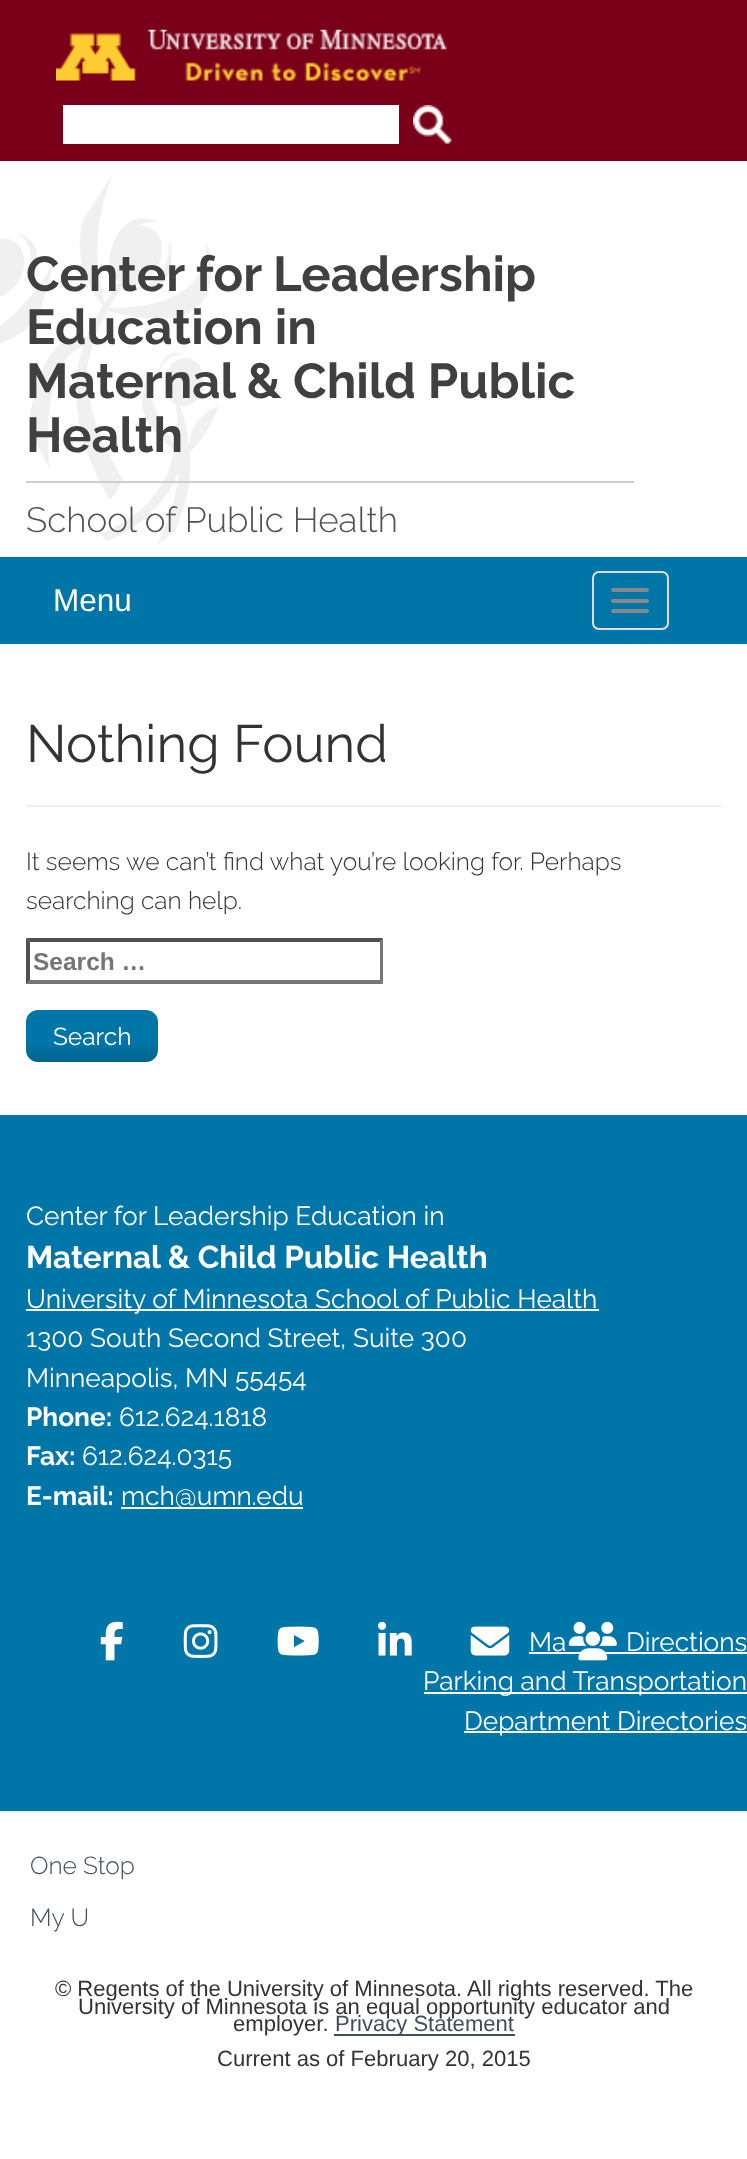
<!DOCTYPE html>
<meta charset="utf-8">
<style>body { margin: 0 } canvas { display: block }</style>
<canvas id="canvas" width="747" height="2159"></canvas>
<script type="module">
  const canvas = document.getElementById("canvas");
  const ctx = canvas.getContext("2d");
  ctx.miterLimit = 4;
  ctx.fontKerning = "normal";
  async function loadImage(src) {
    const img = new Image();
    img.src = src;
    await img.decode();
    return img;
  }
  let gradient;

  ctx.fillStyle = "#ffffff";
  ctx.fillRect(0, 0, 747, 2159);
  ctx.fillStyle = "#7a0019";
  ctx.fillRect(0, 0, 747, 161);
  ctx.drawImage(await loadImage("img1.png"), 56, 29, 391, 52);
  ctx.fillStyle = "#ffffff";
  ctx.fillRect(63, 105, 336, 39);
  ctx.drawImage(await loadImage("img2.png"), 413, 105, 39, 39);
  ctx.drawImage(await loadImage("img3.png"), 0, 174, 218, 370);
  ctx.fillStyle = "#cecece";
  ctx.fillRect(26, 481, 608, 2);
  ctx.font = "bold 49px Raleway";
  ctx.fillStyle = "#404040";
  ctx.fillText("Center for Leadership", 26, 291);
  ctx.fillText("Education in", 26, 344);
  ctx.fillText("Maternal & Child Public", 26, 398);
  ctx.fillText("Health", 26, 452);
  ctx.font = "300 35px Raleway";
  ctx.fillStyle = "#515151";
  ctx.fillText("School of Public Health", 26, 532);
  ctx.fillStyle = "#0075a8";
  ctx.fillRect(0, 557, 747, 87);
  ctx.font = "31.5px Liberation Sans";
  ctx.fillStyle = "#ffffff";
  ctx.fillText("Menu", 53, 611);
  ctx.beginPath();
  ctx.roundRect(593, 572, 75, 57, 6);
  ctx.strokeStyle = "#dddddd";
  ctx.lineWidth = 2;
  ctx.stroke();
  ctx.fillStyle = "#888888";
  ctx.beginPath();
  ctx.roundRect(611, 588, 38, 4, 2);
  ctx.fill();
  ctx.beginPath();
  ctx.roundRect(611, 599, 38, 4, 2);
  ctx.fill();
  ctx.beginPath();
  ctx.roundRect(611, 609, 38, 4, 2);
  ctx.fill();
  ctx.fillStyle = "#eeeeee";
  ctx.fillRect(26, 805, 695, 2);
  ctx.font = "52.5px Raleway";
  ctx.fillStyle = "#333333";
  ctx.fillText("Nothing Found", 26, 762);
  ctx.font = "300 24.5px Raleway";
  ctx.fillText("It seems we can’t find what you’re looking for. Perhaps", 26, 870);
  ctx.fillText("searching can help.", 26, 909);
  ctx.fillStyle = "#4f4f4f";
  ctx.beginPath();
  ctx.moveTo(26, 938);
  ctx.lineTo(383, 938);
  ctx.lineTo(380, 942);
  ctx.lineTo(30, 942);
  ctx.closePath();
  ctx.fill();
  ctx.fillStyle = "#767676";
  ctx.beginPath();
  ctx.moveTo(383, 938);
  ctx.lineTo(383, 984);
  ctx.lineTo(380, 980);
  ctx.lineTo(380, 942);
  ctx.closePath();
  ctx.fill();
  ctx.beginPath();
  ctx.moveTo(383, 984);
  ctx.lineTo(26, 984);
  ctx.lineTo(30, 980);
  ctx.lineTo(380, 980);
  ctx.closePath();
  ctx.fill();
  ctx.fillStyle = "#4f4f4f";
  ctx.beginPath();
  ctx.moveTo(26, 984);
  ctx.lineTo(26, 938);
  ctx.lineTo(30, 942);
  ctx.lineTo(30, 980);
  ctx.closePath();
  ctx.fill();
  ctx.font = "bold 24.5px Liberation Sans";
  ctx.fillStyle = "#757575";
  ctx.fillText("Search …", 33, 970);
  gradient = ctx.createLinearGradient(92, 1010, 92, 1062);
  gradient.addColorStop(0.62, "#0075a8");
  gradient.addColorStop(1, "#00638e");
  ctx.fillStyle = gradient;
  ctx.beginPath();
  ctx.roundRect(26, 1010, 132, 52, 12);
  ctx.fill();
  ctx.font = "24.5px Raleway";
  ctx.fillStyle = "#ffffff";
  ctx.fillText("Search", 53, 1045);
  ctx.fillStyle = "#0075a8";
  ctx.fillRect(0, 1115, 747, 696);
  ctx.font = "26.25px Raleway";
  ctx.fillStyle = "#ffffff";
  ctx.fillText("Center for Leadership Education in", 26, 1225);
  ctx.font = "bold 31.5px Raleway";
  ctx.fillText("Maternal & Child Public Health", 26, 1268);
  ctx.fillRect(26, 1309, 573, 2);
  ctx.font = "26.25px Raleway";
  ctx.fillText("University of Minnesota School of Public Health", 26, 1308);
  ctx.fillText("1300 South Second Street, Suite 300", 26, 1347);
  ctx.fillText("Minneapolis, MN 55454", 26, 1387);
  ctx.font = "bold 26.25px Raleway";
  ctx.fillText("Phone:", 26, 1426);
  ctx.font = "26.25px Raleway";
  ctx.fillText("612.624.1818", 119, 1426);
  ctx.font = "bold 26.25px Raleway";
  ctx.fillText("Fax:", 26, 1465);
  ctx.font = "26.25px Raleway";
  ctx.fillText("612.624.0315", 82, 1465);
  ctx.font = "bold 26.25px Raleway";
  ctx.fillText("E-mail:", 26, 1505);
  ctx.fillRect(121, 1507, 182, 2);
  ctx.font = "26.25px Raleway";
  ctx.fillText("mch@umn.edu", 121, 1505);
  ctx.drawImage(await loadImage("img4.png"), 100, 1621, 23, 40);
  ctx.drawImage(await loadImage("img5.png"), 183, 1624, 35, 34);
  ctx.drawImage(await loadImage("img6.png"), 277, 1626, 42, 30);
  ctx.drawImage(await loadImage("img7.png"), 378, 1621, 34, 35);
  ctx.drawImage(await loadImage("img8.png"), 470, 1626, 40, 30);
  ctx.fillRect(529, 1652, 218, 2);
  ctx.drawImage(await loadImage("img9.png"), 568, 1621, 49, 40);
  ctx.fillText("Ma", 529, 1651);
  ctx.fillText("Directions", 626, 1651);
  ctx.fillRect(424, 1692, 323, 2);
  ctx.fillText("Parking and Transportation", 423, 1690);
  ctx.fillRect(464, 1731, 283, 2);
  ctx.fillText("Department Directories", 464, 1730);
  ctx.fillStyle = "#f0f0f0";
  ctx.fillRect(0, 1811, 747, 2);
  ctx.font = "300 24.5px Raleway";
  ctx.fillStyle = "#404d5b";
  ctx.fillText("One Stop", 30, 1874);
  ctx.fillText("My U", 30, 1926);
  ctx.font = "22.05px Liberation Sans";
  ctx.fillStyle = "#333333";
  ctx.fillText("© Regents of the University of Minnesota. All rights reserved. The", 55, 1996);
  ctx.fillText("University of Minnesota is an equal opportunity educator and", 78, 2014);
  ctx.fillText("employer.", 233, 2031);
  ctx.fillStyle = "#404d5b";
  ctx.fillRect(334, 2034, 181, 2);
  ctx.fillText("Privacy Statement", 335, 2031);
  ctx.fillStyle = "#333333";
  ctx.fillText("Current as of February 20, 2015", 217, 2066);
</script>
